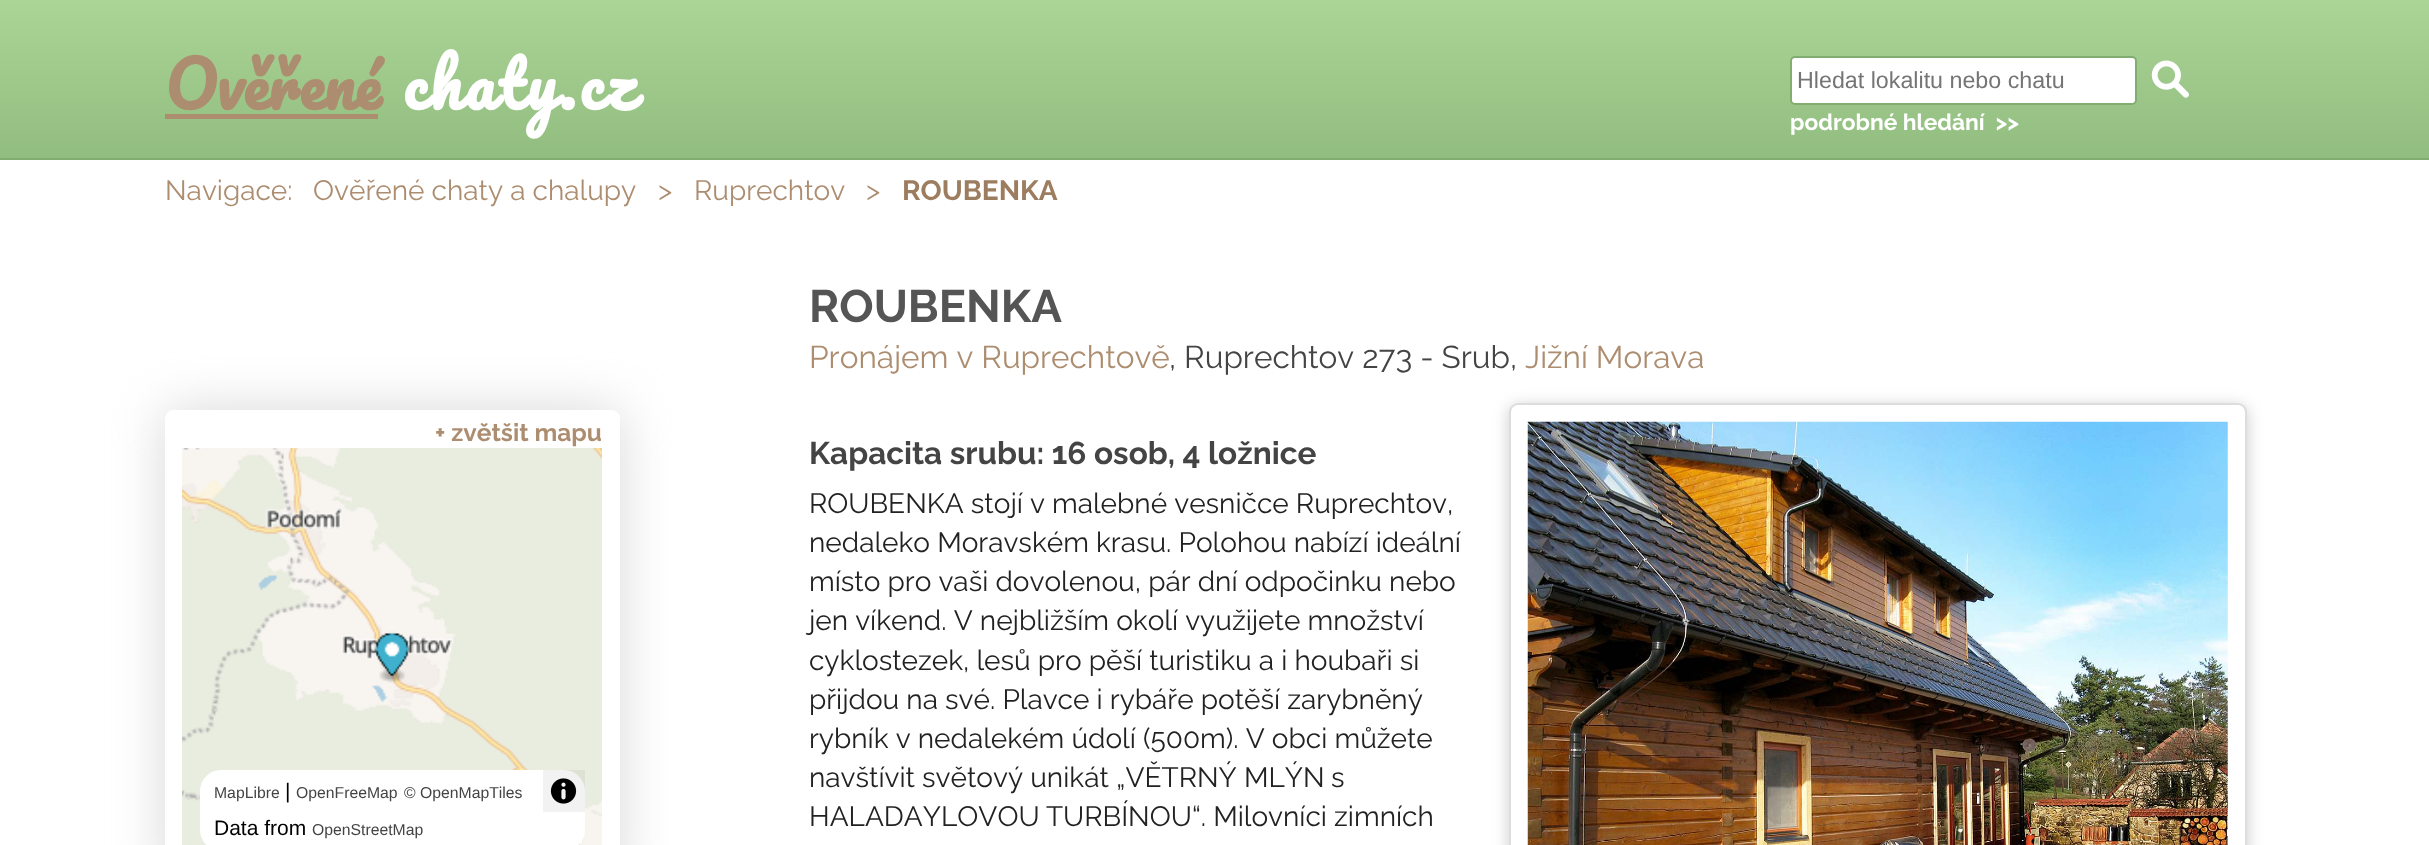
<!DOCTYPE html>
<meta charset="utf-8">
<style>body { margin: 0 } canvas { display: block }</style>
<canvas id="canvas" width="2429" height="845"></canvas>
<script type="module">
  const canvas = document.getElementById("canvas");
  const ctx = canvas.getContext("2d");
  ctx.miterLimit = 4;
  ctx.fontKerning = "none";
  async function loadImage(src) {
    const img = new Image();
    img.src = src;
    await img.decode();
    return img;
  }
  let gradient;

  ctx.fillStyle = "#ffffff";
  ctx.fillRect(0, 0, 2429, 845);
  gradient = ctx.createLinearGradient(1215, 0, 1215, 158);
  gradient.addColorStop(0, "#aad596");
  gradient.addColorStop(1, "#92bd80");
  ctx.fillStyle = gradient;
  ctx.fillRect(0, 0, 2429, 158);
  ctx.fillStyle = "#82ad70";
  ctx.fillRect(0, 158, 2429, 2);
  ctx.font = "bold 63px Pacifico";
  ctx.fillStyle = "#ad8d70";
  ctx.fillText("Ověřené", 165, 110);
  ctx.fillRect(165, 114, 213, 5);
  ctx.letterSpacing = "3.5px";
  ctx.fillStyle = "#ffffff";
  ctx.fillText("chaty.cz", 403, 110);
  ctx.beginPath();
  ctx.roundRect(1791, 57, 345, 47, 4);
  ctx.fill();
  ctx.strokeStyle = "#82ad70";
  ctx.lineWidth = 2;
  ctx.stroke();
  ctx.letterSpacing = "0px";
  ctx.font = "23.25px Liberation Sans";
  ctx.fillStyle = "#757575";
  ctx.fillText("Hledat lokalitu nebo chatu", 1797, 88);
  ctx.drawImage(await loadImage("img1.png"), 2151, 60, 38, 38);
  ctx.font = "bold 22.75px Raleway";
  ctx.fillStyle = "#ffffff";
  ctx.fillText("podrobné hledání  >>", 1790, 130);
  ctx.font = "28px Raleway";
  ctx.fillStyle = "#ad8d70";
  ctx.fillText("Navigace:", 165, 200);
  ctx.fillText("Ověřené chaty a chalupy", 313, 200);
  ctx.fillText(">", 658, 200);
  ctx.fillText("Ruprechtov", 694, 200);
  ctx.fillText(">", 866, 200);
  ctx.font = "bold 28px Raleway";
  ctx.fillStyle = "#9d7d60";
  ctx.fillText("ROUBENKA", 902, 200);
  ctx.font = "bold 45.5px Raleway";
  ctx.fillStyle = "#555555";
  ctx.fillText("ROUBENKA", 809, 322);
  ctx.save();
  ctx.beginPath();
  ctx.moveTo(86, 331);
  ctx.lineTo(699, 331);
  ctx.lineTo(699, 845);
  ctx.lineTo(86, 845);
  ctx.closePath();
  ctx.moveTo(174, 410);
  ctx.lineTo(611, 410);
  ctx.bezierCurveTo(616, 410, 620, 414, 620, 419);
  ctx.lineTo(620, 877);
  ctx.bezierCurveTo(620, 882, 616, 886, 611, 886);
  ctx.lineTo(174, 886);
  ctx.bezierCurveTo(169, 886, 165, 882, 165, 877);
  ctx.lineTo(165, 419);
  ctx.bezierCurveTo(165, 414, 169, 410, 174, 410);
  ctx.closePath();
  ctx.clip("evenodd");
  ctx.fillStyle = "rgba(200, 200, 200, 0.7)";
  ctx.filter = "blur(26px)";
  ctx.beginPath();
  ctx.roundRect(165, 410, 455, 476, 9);
  ctx.fill();
  ctx.filter = "none";
  ctx.restore();
  ctx.beginPath();
  ctx.roundRect(169.5, 414.5, 446, 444, 4.5);
  ctx.strokeStyle = "#ffffff";
  ctx.lineWidth = 9;
  ctx.stroke();
  ctx.font = "bold 24.5px Raleway";
  ctx.fillStyle = "#ad8d70";
  ctx.fillText("+ zvětšit mapu", 435, 441);
  ctx.drawImage(await loadImage("img2.png"), 182, 448, 420, 397);
  ctx.fillStyle = "#ffffff";
  ctx.beginPath();
  ctx.roundRect(200, 770, 385, 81, 21);
  ctx.fill();
  ctx.font = "15.75px Liberation Sans";
  ctx.fillStyle = "#444444";
  ctx.fillText("MapLibre", 214, 798);
  ctx.font = "21px Liberation Sans";
  ctx.fillStyle = "#000000";
  ctx.fillText("|", 285, 798);
  ctx.font = "15.75px Liberation Sans";
  ctx.fillStyle = "#444444";
  ctx.fillText("OpenFreeMap", 296, 798);
  ctx.fillText("© OpenMapTiles", 404, 798);
  ctx.font = "21px Liberation Sans";
  ctx.fillStyle = "#000000";
  ctx.fillText("Data from", 214, 835);
  ctx.font = "15.75px Liberation Sans";
  ctx.fillStyle = "#444444";
  ctx.fillText("OpenStreetMap", 312, 835);
  ctx.fillStyle = "rgba(0, 0, 0, 0.05)";
  ctx.fillRect(543, 770, 42, 42);
  ctx.drawImage(await loadImage("img3.png"), 550, 778, 27, 26);
  ctx.font = "31.5px Raleway";
  ctx.fillStyle = "#ad8d70";
  ctx.fillText("Pronájem v Ruprechtově", 809, 368);
  ctx.fillStyle = "#444444";
  ctx.fillText(", Ruprechtov 273 - Srub,", 1169, 368);
  ctx.fillStyle = "#ad8d70";
  ctx.fillText("Jižní Morava", 1525, 368);
  ctx.font = "bold 31.5px Raleway";
  ctx.fillStyle = "#444444";
  ctx.fillText("Kapacita srubu: 16 osob, 4 ložnice", 809, 464);
  ctx.fillStyle = "rgba(180, 180, 180, 0.7)";
  ctx.filter = "blur(8px)";
  ctx.beginPath();
  ctx.roundRect(1509, 406, 738, 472, 9);
  ctx.fill();
  ctx.filter = "none";
  ctx.fillStyle = "#ffffff";
  ctx.beginPath();
  ctx.roundRect(1510, 404, 736, 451, 8);
  ctx.fill();
  ctx.strokeStyle = "#dddddd";
  ctx.lineWidth = 2;
  ctx.stroke();
  ctx.drawImage(await loadImage("img4.png"), 1527, 421, 701, 424);
  ctx.font = "28px Raleway";
  ctx.fillStyle = "#222222";
  ctx.fillText("ROUBENKA stojí v malebné vesničce Ruprechtov,", 809, 513);
  ctx.fillText("nedaleko Moravském krasu. Polohou nabízí ideální", 809, 552);
  ctx.fillText("místo pro vaši dovolenou, pár dní odpočinku nebo", 809, 591);
  ctx.fillText("jen víkend. V nejbližším okolí využijete množství", 809, 630);
  ctx.fillText("cyklostezek, lesů pro pěší turistiku a i houbaři si", 809, 670);
  ctx.fillText("přijdou na své. Plavce i rybáře potěší zarybněný", 809, 709);
  ctx.fillText("rybník v nedalekém údolí (500m). V obci můžete", 809, 748);
  ctx.fillText("navštívit světový unikát „VĚTRNÝ MLÝN", 809, 787);
  ctx.fillText("s", 1331, 787);
  ctx.fillText("HALADAYLOVOU", 809, 826);
  ctx.fillText("TURBÍNOU“. Milovníci zimních", 1046, 826);
</script>
